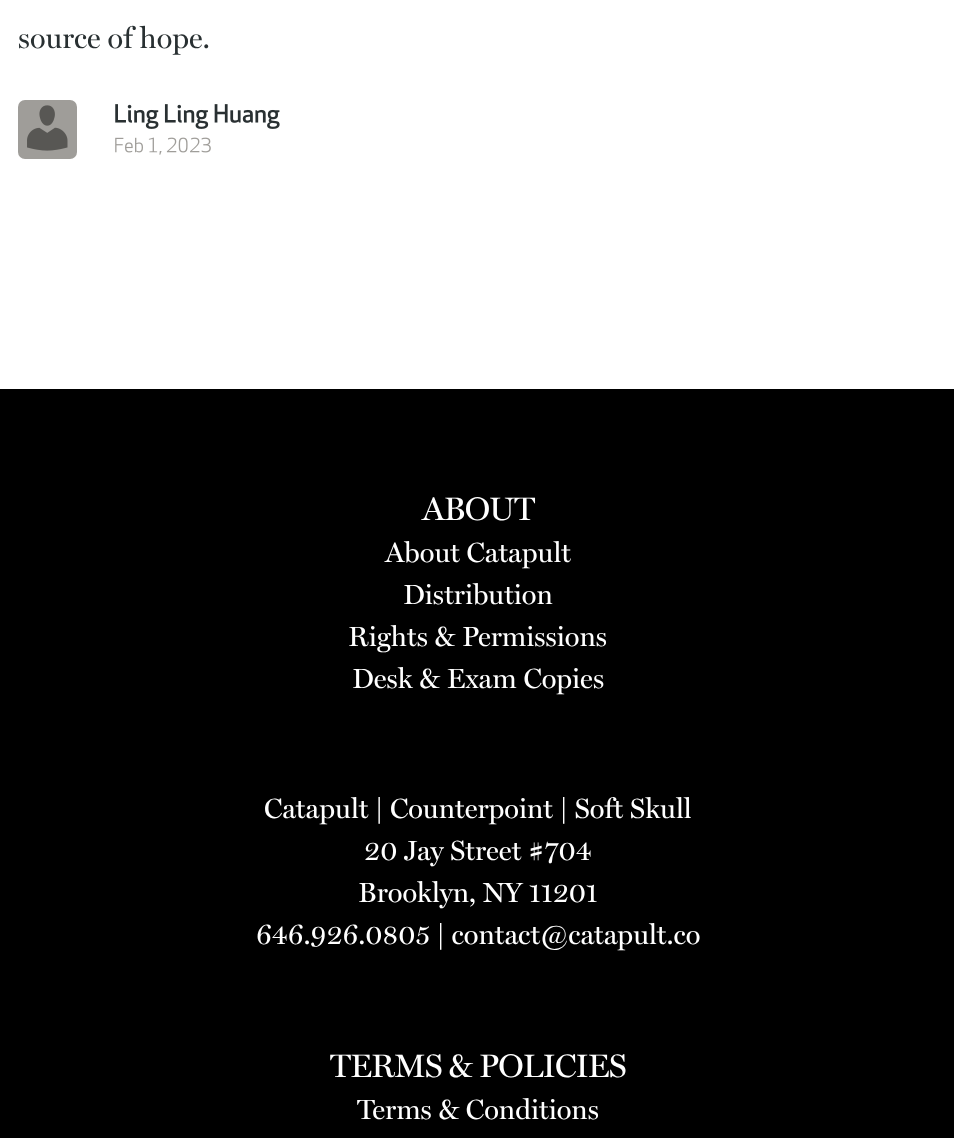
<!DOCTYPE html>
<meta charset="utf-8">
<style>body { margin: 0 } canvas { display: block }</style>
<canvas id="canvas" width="954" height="1138"></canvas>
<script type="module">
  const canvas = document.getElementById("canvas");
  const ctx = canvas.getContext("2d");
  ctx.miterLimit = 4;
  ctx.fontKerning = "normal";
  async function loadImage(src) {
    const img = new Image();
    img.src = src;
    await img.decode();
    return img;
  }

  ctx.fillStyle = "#ffffff";
  ctx.fillRect(0, 0, 954, 1138);
  ctx.font = "500 29.75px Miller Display";
  ctx.fillStyle = "#293032";
  ctx.fillText("source of hope.", 18, 48);
  ctx.fillStyle = "#9f9d99";
  ctx.beginPath();
  ctx.roundRect(18, 100, 59, 59, 7);
  ctx.fill();
  ctx.drawImage(await loadImage("img1.png"), 27, 105, 41, 46);
  ctx.drawImage(await loadImage("img2.png"), 115, 104, 165, 25);
  ctx.drawImage(await loadImage("img3.png"), 115, 137, 96, 18);
  ctx.fillStyle = "#000000";
  ctx.fillRect(0, 389, 954, 749);
  ctx.letterSpacing = "-0.9px";
  ctx.font = "500 32.75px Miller";
  ctx.fillStyle = "#ffffff";
  ctx.fillText("ABOUT", 422, 520);
  ctx.letterSpacing = "0px";
  ctx.font = "500 28px Miller";
  ctx.fillText("About Catapult", 385, 562);
  ctx.fillText("Distribution", 403, 604);
  ctx.fillText("Rights & Permissions", 348, 646);
  ctx.fillText("Desk & Exam Copies", 352, 688);
  ctx.fillText("Catapult | Counterpoint | Soft Skull", 264, 818);
  ctx.fillText("20 Jay Street #704", 364, 860);
  ctx.fillText("Brooklyn, NY 11201", 358, 902);
  ctx.fillText("646.926.0805 | contact@catapult.co", 256, 944);
  ctx.letterSpacing = "-0.9px";
  ctx.font = "500 32.75px Miller";
  ctx.fillText("TERMS & POLICIES", 330, 1077);
  ctx.letterSpacing = "0px";
  ctx.font = "500 28px Miller";
  ctx.fillText("Terms & Conditions", 357, 1119);
</script>
